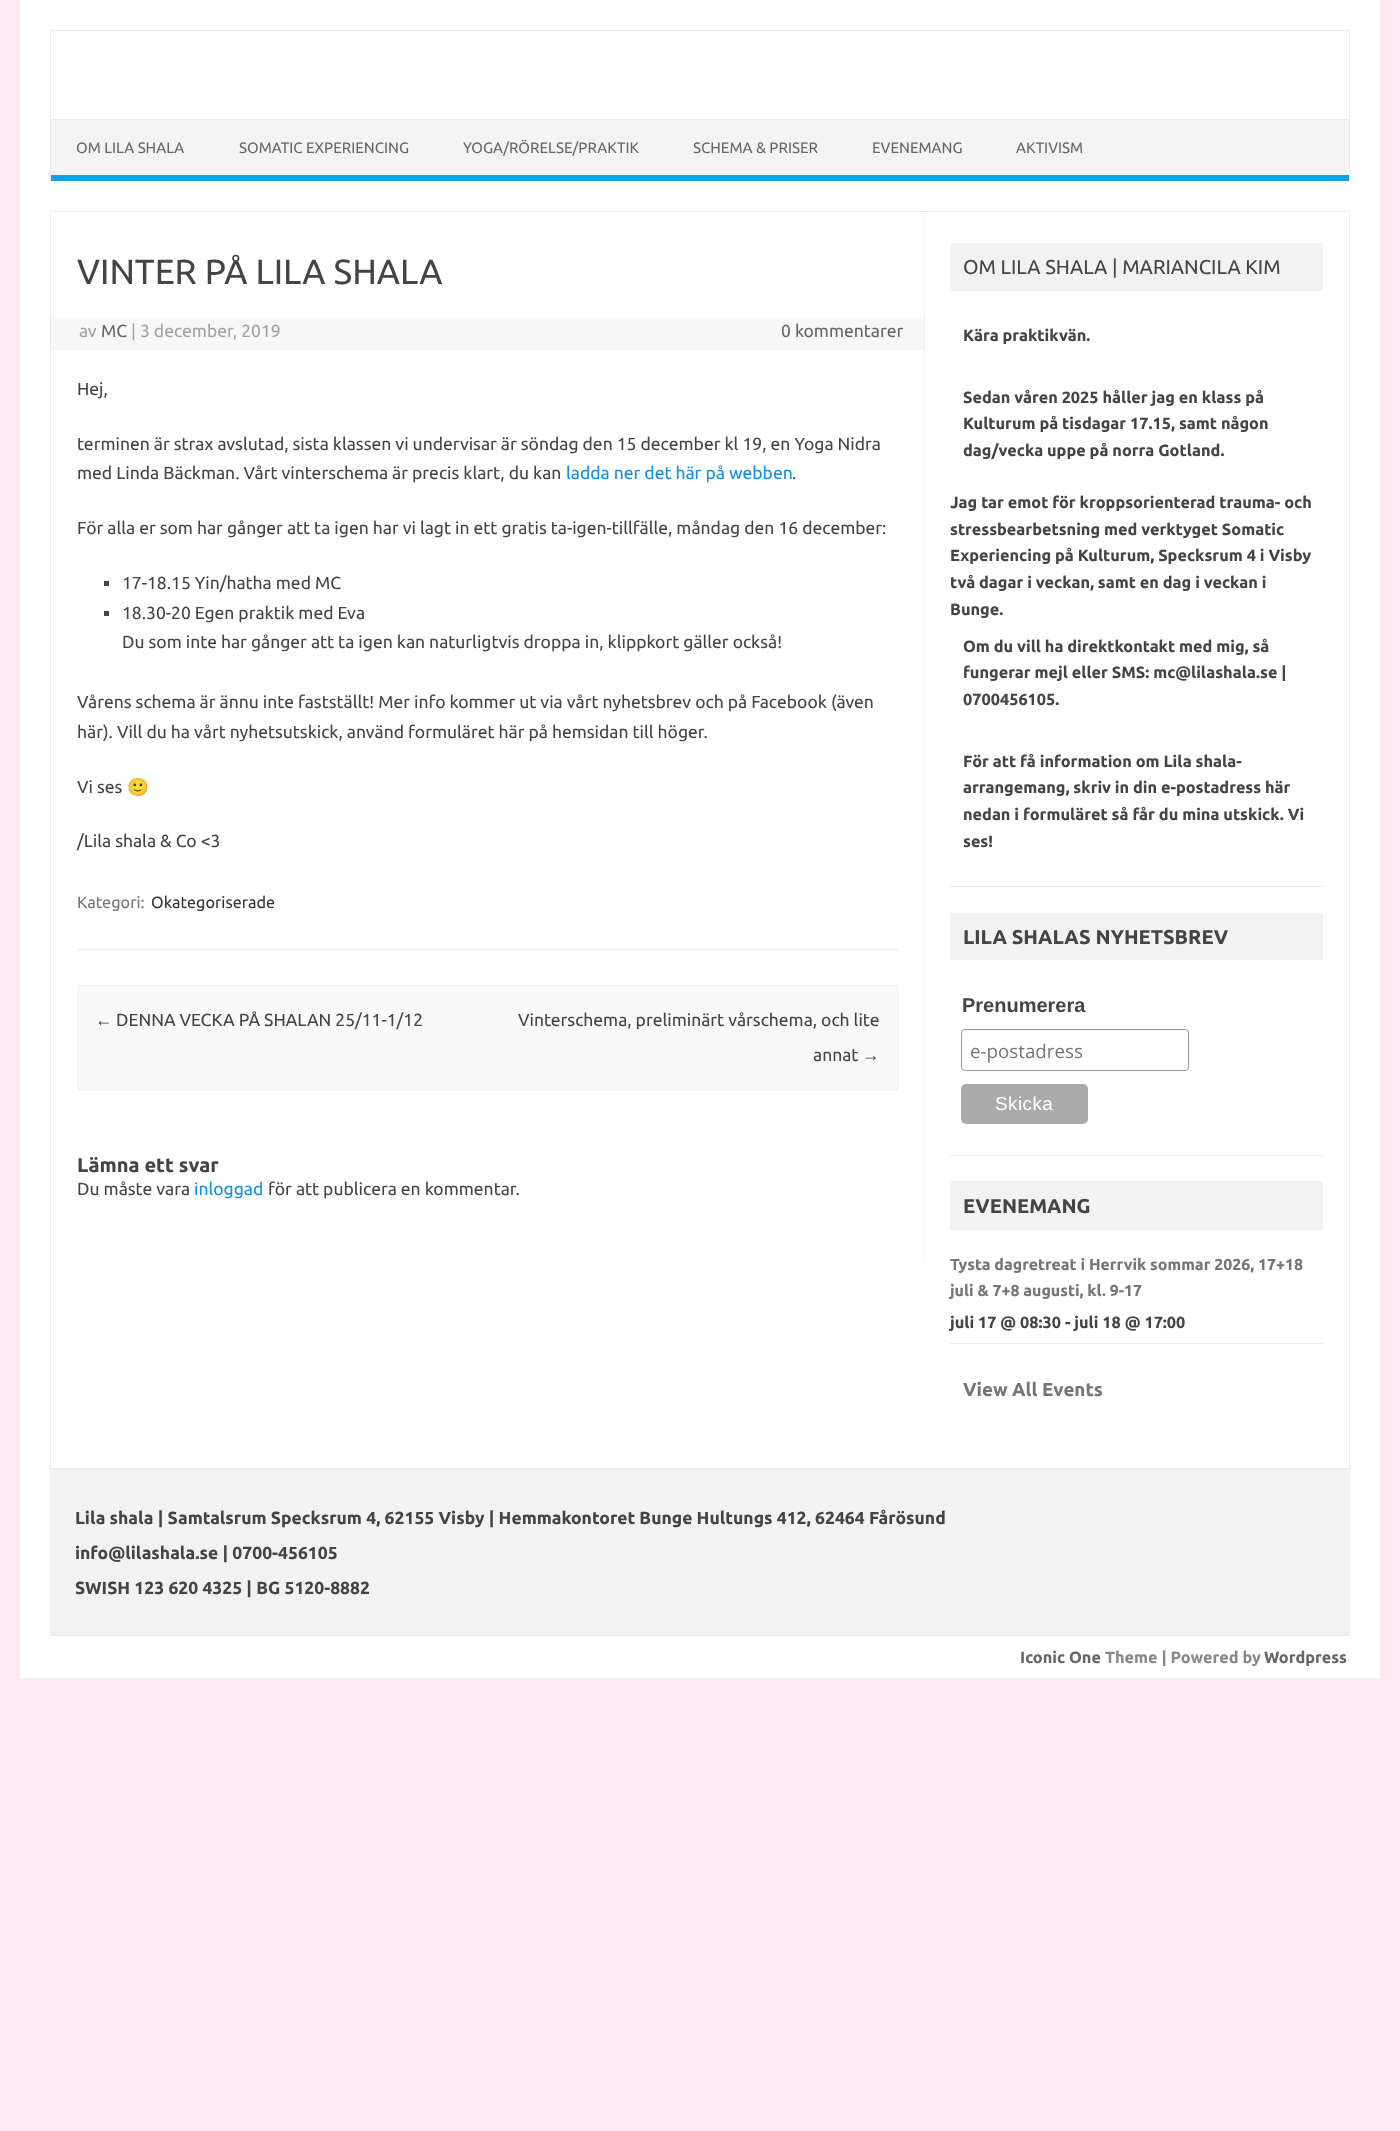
<!DOCTYPE html>
<meta charset="utf-8">
<style>body { margin: 0 } canvas { display: block }</style>
<canvas id="canvas" width="1400" height="2131"></canvas>
<script type="module">
  const canvas = document.getElementById("canvas");
  const ctx = canvas.getContext("2d");
  ctx.miterLimit = 4;
  ctx.fontKerning = "normal";

  ctx.fillStyle = "#fee9f2";
  ctx.fillRect(0, 0, 1400, 2131);
  ctx.fillStyle = "#ffffff";
  ctx.fillRect(20, 0, 1360, 1678);
  ctx.fillStyle = "#e9e9e9";
  ctx.fillRect(50, 30, 1300, 1);
  ctx.fillRect(1349, 30, 1, 151);
  ctx.fillRect(50, 30, 1, 151);
  ctx.fillStyle = "#f3f3f3";
  ctx.fillRect(51, 120, 1298, 55);
  ctx.fillStyle = "#ededed";
  ctx.fillRect(51, 119, 1298, 1);
  ctx.fillStyle = "#16a1e7";
  ctx.fillRect(51, 175, 1298, 6);
  ctx.font = "15px Ubuntu";
  ctx.fillStyle = "#666666";
  ctx.fillText("OM LILA SHALA", 76, 153);
  ctx.fillText("SOMATIC EXPERIENCING", 239, 153);
  ctx.fillText("YOGA/RÖRELSE/PRAKTIK", 463, 153);
  ctx.fillText("SCHEMA & PRISER", 693, 153);
  ctx.fillText("EVENEMANG", 872, 153);
  ctx.fillText("AKTIVISM", 1016, 153);
  ctx.strokeStyle = "#e9e9e9";
  ctx.strokeRect(50.5, 211.5, 1299, 1257);
  ctx.fillStyle = "#f1f1f1";
  ctx.fillRect(924, 213, 1, 1045);
  ctx.fillStyle = "#f3f3f3";
  ctx.fillRect(78, 948, 820, 3);
  ctx.font = "35px Ubuntu";
  ctx.fillStyle = "#444444";
  ctx.fillText("VINTER PÅ LILA SHALA", 77, 284);
  ctx.fillStyle = "#f7f7f7";
  ctx.fillRect(51, 318, 873, 32);
  ctx.font = "17.5px Ubuntu";
  ctx.fillStyle = "#a2a2a2";
  ctx.fillText("av", 79, 337);
  ctx.fillStyle = "#666666";
  ctx.fillText("MC", 101, 337);
  ctx.fillStyle = "#a2a2a2";
  ctx.fillText("| 3 december, 2019", 131, 337);
  ctx.fillStyle = "#666666";
  ctx.fillText("0 kommentarer", 781, 337);
  ctx.fillStyle = "#444444";
  ctx.fillText("Hej,", 77, 395);
  ctx.fillText("terminen är strax avslutad, sista klassen vi undervisar är söndag den 15 december kl 19, en Yoga Nidra", 77, 450);
  ctx.fillText("med Linda Bäckman. Vårt vinterschema är precis klart, du kan", 77, 479);
  ctx.fillStyle = "#0b91ea";
  ctx.fillText("ladda ner det här på webben", 566, 479);
  ctx.fillStyle = "#444444";
  ctx.fillText(".", 792, 479);
  ctx.fillText("För alla er som har gånger att ta igen har vi lagt in ett gratis ta-igen-tillfälle, måndag den 16 december:", 77, 534);
  ctx.fillRect(104, 581, 5, 5);
  ctx.fillText("17-18.15 Yin/hatha med MC", 122, 589);
  ctx.fillRect(104, 611, 5, 5);
  ctx.fillText("18.30-20 Egen praktik med Eva", 122, 619);
  ctx.fillText("Du som inte har gånger att ta igen kan naturligtvis droppa in, klippkort gäller också!", 122, 648);
  ctx.fillText("Vårens schema är ännu inte fastställt! Mer info kommer ut via vårt nyhetsbrev och på Facebook (även", 77, 708);
  ctx.fillText("här). Vill du ha vårt nyhetsutskick, använd formuläret här på hemsidan till höger.", 77, 738);
  ctx.fillText("Vi ses", 77, 793);
  ctx.font = "17.5px Noto Color Emoji";
  ctx.fillText("🙂", 127, 793);
  ctx.font = "17.5px Ubuntu";
  ctx.fillText("/Lila shala & Co <3", 77, 847);
  ctx.font = "16.25px Ubuntu";
  ctx.fillStyle = "#757575";
  ctx.fillText("Kategori:", 77, 908);
  ctx.fillStyle = "#333333";
  ctx.fillText("Okategoriserade", 151, 908);
  ctx.fillStyle = "#f9f9f9";
  ctx.beginPath();
  ctx.rect(78.5, 985.5, 819, 104);
  ctx.fill();
  ctx.strokeStyle = "#ededed";
  ctx.stroke();
  ctx.font = "17.5px Liberation Sans";
  ctx.fillStyle = "#444444";
  ctx.fillText("←", 95, 1026);
  ctx.font = "17.5px Ubuntu";
  ctx.fillText("DENNA VECKA PÅ SHALAN 25/11-1/12", 116, 1026);
  ctx.fillText("Vinterschema, preliminärt vårschema, och lite", 518, 1026);
  ctx.fillText("annat", 813, 1061);
  ctx.font = "17.5px Liberation Sans";
  ctx.fillText("→", 862, 1061);
  ctx.font = "bold 20px Ubuntu";
  ctx.fillText("Lämna ett svar", 77, 1172);
  ctx.font = "17.5px Ubuntu";
  ctx.fillText("Du måste vara", 77, 1195);
  ctx.fillStyle = "#0b91ea";
  ctx.fillText("inloggad", 194, 1195);
  ctx.fillStyle = "#444444";
  ctx.fillText("för att publicera en kommentar.", 268, 1195);
  ctx.fillStyle = "#f2f2f2";
  ctx.fillRect(950, 243, 373, 48);
  ctx.font = "20px Ubuntu";
  ctx.fillStyle = "#444444";
  ctx.fillText("OM LILA SHALA | MARIANCILA KIM", 963, 274);
  ctx.fillStyle = "#e9e9e9";
  ctx.fillRect(950, 886, 373, 1);
  ctx.font = "bold 16.25px Ubuntu";
  ctx.fillStyle = "#444444";
  ctx.fillText("Kära praktikvän.", 963, 341);
  ctx.fillText("Sedan våren 2025 håller jag en klass på", 963, 403);
  ctx.fillText("Kulturum på tisdagar 17.15, samt någon", 963, 429);
  ctx.fillText("dag/vecka uppe på norra Gotland.", 963, 456);
  ctx.fillText("Jag tar emot för kroppsorienterad trauma- och", 950, 508);
  ctx.fillText("stressbearbetsning med verktyget Somatic", 950, 535);
  ctx.fillText("Experiencing på Kulturum, Specksrum 4 i Visby", 950, 561);
  ctx.fillText("två dagar i veckan, samt en dag i veckan i", 950, 588);
  ctx.fillText("Bunge.", 950, 615);
  ctx.fillText("Om du vill ha direktkontakt med mig, så", 963, 652);
  ctx.fillText("fungerar mejl eller SMS: mc@lilashala.se |", 963, 678);
  ctx.fillText("0700456105.", 963, 705);
  ctx.fillText("För att få information om Lila shala-", 963, 767);
  ctx.fillText("arrangemang, skriv in din e-postadress här", 963, 793);
  ctx.fillText("nedan i formuläret så får du mina utskick. Vi", 963, 820);
  ctx.fillText("ses!", 963, 847);
  ctx.fillStyle = "#f2f2f2";
  ctx.fillRect(950, 913, 373, 47);
  ctx.font = "bold 20px Ubuntu";
  ctx.fillStyle = "#444444";
  ctx.fillText("LILA SHALAS NYHETSBREV", 963, 944);
  ctx.fillStyle = "#e9e9e9";
  ctx.fillRect(950, 1155, 373, 1);
  ctx.font = "bold 20px Liberation Sans";
  ctx.fillStyle = "#444444";
  ctx.fillText("Prenumerera", 962, 1012);
  ctx.beginPath();
  ctx.roundRect(961.5, 1029.5, 227, 41, 3.5);
  ctx.strokeStyle = "#999999";
  ctx.stroke();
  ctx.font = "18.75px Open Sans";
  ctx.fillStyle = "#757575";
  ctx.fillText("e-postadress", 970, 1058);
  ctx.fillStyle = "#aaaaaa";
  ctx.beginPath();
  ctx.roundRect(961, 1084, 127, 40, 5);
  ctx.fill();
  ctx.letterSpacing = "0.5px";
  ctx.font = "18.75px Liberation Sans";
  ctx.fillStyle = "#ffffff";
  ctx.fillText("Skicka", 995, 1110);
  ctx.fillStyle = "#f2f2f2";
  ctx.fillRect(950, 1181, 373, 49);
  ctx.letterSpacing = "0px";
  ctx.font = "bold 20px Ubuntu";
  ctx.fillStyle = "#444444";
  ctx.fillText("EVENEMANG", 963, 1213);
  ctx.fillStyle = "#e9e9e9";
  ctx.fillRect(950, 1343, 373, 1);
  ctx.font = "bold 15.9px Ubuntu";
  ctx.fillStyle = "#757575";
  ctx.fillText("Tysta dagretreat i Herrvik sommar 2026, 17+18", 950, 1270);
  ctx.fillText("juli & 7+8 augusti, kl. 9-17", 950, 1296);
  ctx.font = "bold 16.25px Ubuntu";
  ctx.fillStyle = "#444444";
  ctx.fillText("juli 17 @ 08:30 - juli 18 @ 17:00", 950, 1328);
  ctx.font = "bold 18.75px Ubuntu";
  ctx.fillStyle = "#757575";
  ctx.fillText("View All Events", 963, 1396);
  ctx.fillStyle = "#f2f2f2";
  ctx.fillRect(50, 1470, 1300, 165);
  ctx.fillStyle = "#ededed";
  ctx.fillRect(50, 1469, 1300, 1);
  ctx.fillStyle = "#e9e9e9";
  ctx.fillRect(50, 1635, 1300, 1);
  ctx.font = "bold 17.5px Ubuntu";
  ctx.fillStyle = "#444444";
  ctx.fillText("Lila shala | Samtalsrum Specksrum 4, 62155 Visby | Hemmakontoret Bunge Hultungs 412, 62464 Fårösund", 75, 1524);
  ctx.fillText("info@lilashala.se | 0700-456105", 75, 1559);
  ctx.fillText("SWISH 123 620 4325 | BG 5120-8882", 75, 1594);
  ctx.font = "bold 16.25px Ubuntu";
  ctx.fillStyle = "#666666";
  ctx.fillText("Iconic One", 1020, 1663);
  ctx.fillStyle = "#888888";
  ctx.fillText("Theme | Powered by", 1105, 1663);
  ctx.fillStyle = "#666666";
  ctx.fillText("Wordpress", 1264, 1663);
</script>
